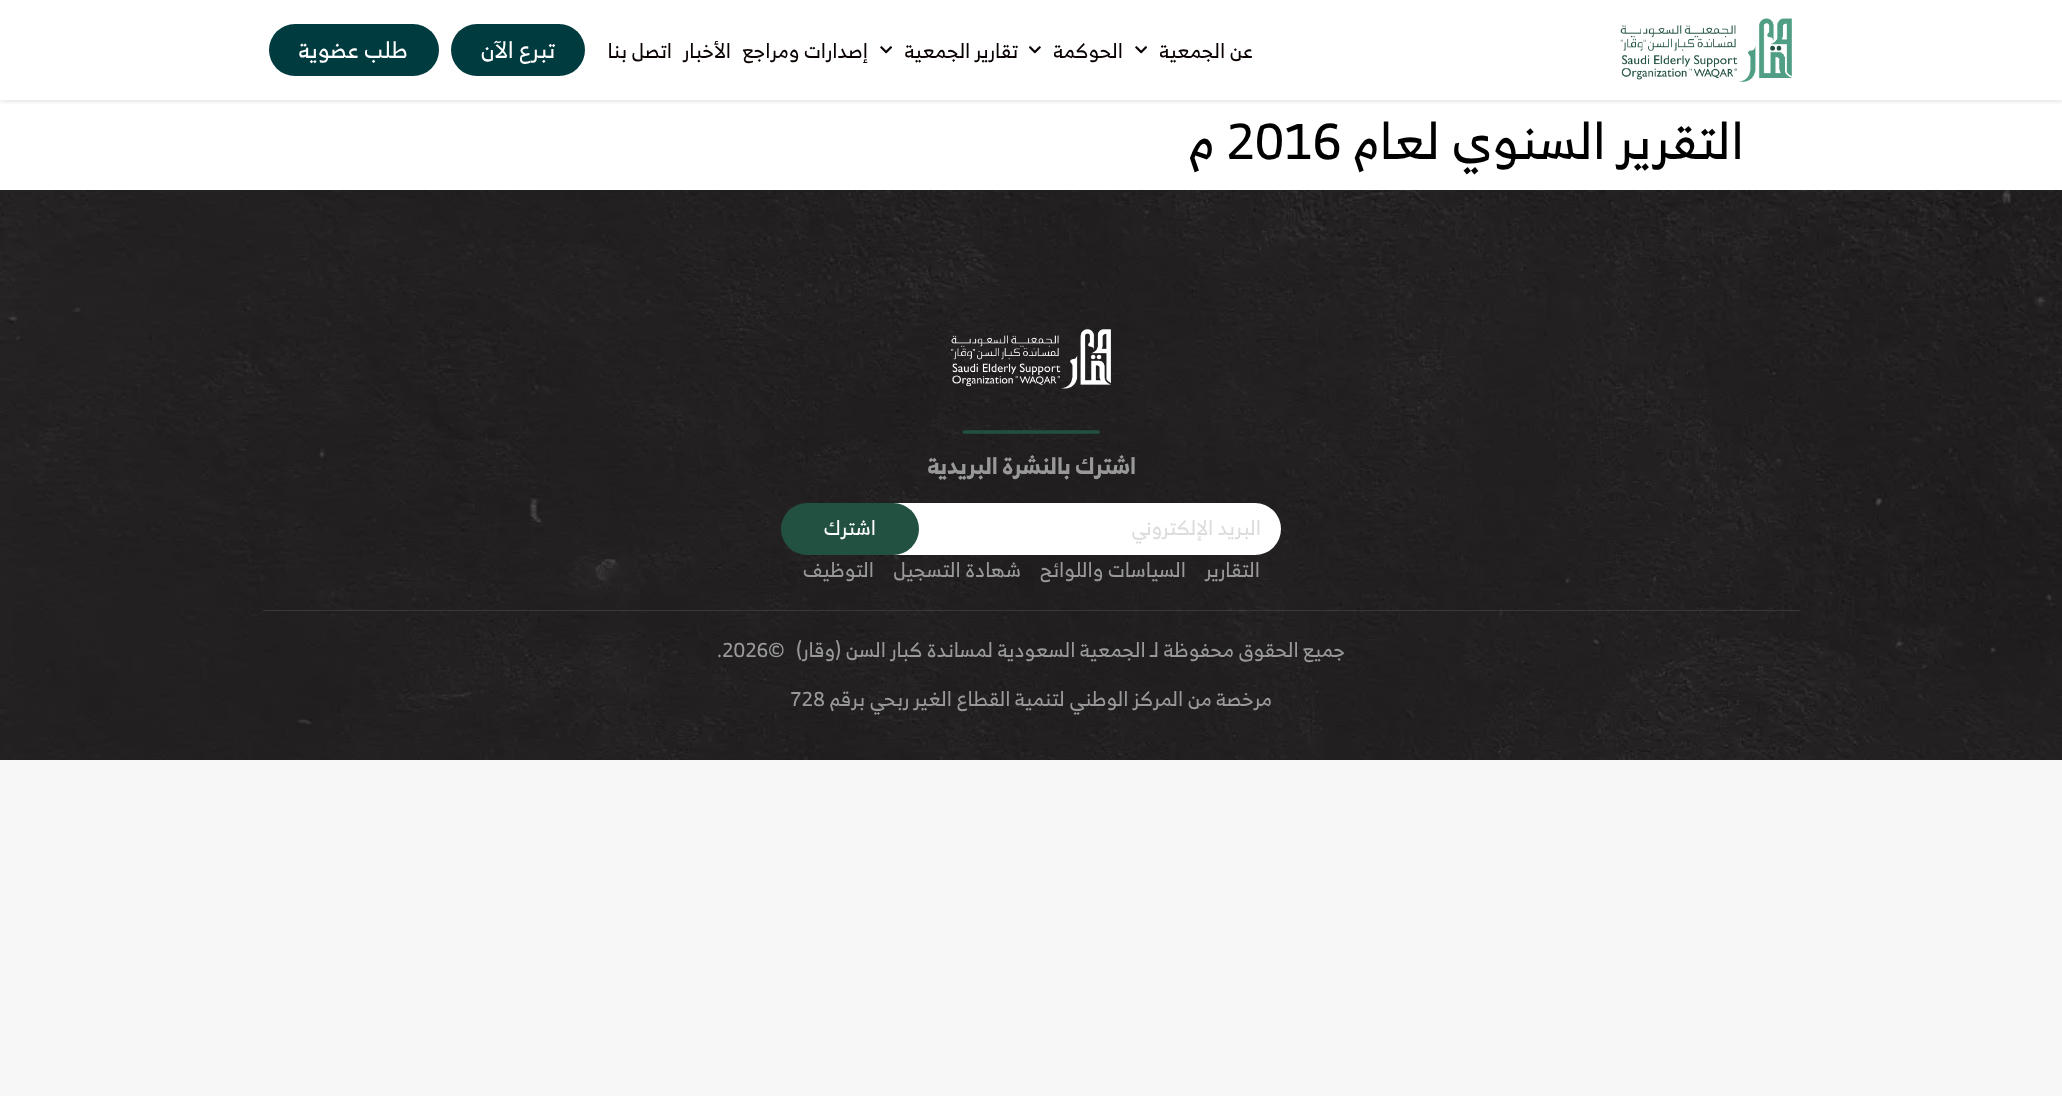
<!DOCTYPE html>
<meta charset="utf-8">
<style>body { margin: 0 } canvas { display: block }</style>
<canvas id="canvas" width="2062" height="1096"></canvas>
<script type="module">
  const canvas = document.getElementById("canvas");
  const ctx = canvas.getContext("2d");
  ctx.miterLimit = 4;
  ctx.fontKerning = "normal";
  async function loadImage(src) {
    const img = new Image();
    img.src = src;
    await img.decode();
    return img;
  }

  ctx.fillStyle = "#f7f7f7";
  ctx.fillRect(0, 0, 2062, 1096);
  ctx.fillStyle = "#ffffff";
  ctx.fillRect(0, 0, 2062, 190);
  ctx.save();
  ctx.beginPath();
  ctx.rect(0, 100, 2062, 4);
  ctx.clip();
  ctx.fillStyle = "rgba(0, 0, 0, 0.18)";
  ctx.filter = "blur(3px)";
  ctx.beginPath();
  ctx.rect(0, 0, 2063, 100);
  ctx.fill();
  ctx.filter = "none";
  ctx.restore();
  ctx.drawImage(await loadImage("img1.png"), 1620, 18, 172, 64);
  ctx.direction = "rtl";
  ctx.font = "20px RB";
  ctx.fillStyle = "#0a0101";
  ctx.fillText("عن الجمعية", 1253, 58);
  ctx.drawImage(await loadImage("img2.png"), 1135, 46, 12, 8);
  ctx.fillText("الحوكمة", 1123, 58);
  ctx.drawImage(await loadImage("img3.png"), 1029, 46, 12, 8);
  ctx.fillText("تقارير الجمعية", 1018, 58);
  ctx.drawImage(await loadImage("img2.png"), 880, 46, 12, 8);
  ctx.fillText("إصدارات ومراجع", 868, 58);
  ctx.fillText("الأخبار", 731, 58);
  ctx.fillText("اتصل بنا", 672, 58);
  ctx.fillStyle = "#003b40";
  ctx.beginPath();
  ctx.roundRect(451, 24, 134, 52, 26);
  ctx.fill();
  ctx.font = "22.5px RB";
  ctx.fillStyle = "#ffffff";
  ctx.fillText("تبرع الآن", 555, 58);
  ctx.fillStyle = "#003b40";
  ctx.beginPath();
  ctx.roundRect(269, 24, 170, 52, 26);
  ctx.fill();
  ctx.fillStyle = "#ffffff";
  ctx.fillText("طلب عضوية", 408, 58);
  ctx.font = "50px RB";
  ctx.fillStyle = "#000000";
  ctx.fillText("التقرير السنوي لعام", 1744, 159);
  ctx.direction = "ltr";
  ctx.fillText("2016", 1226, 159);
  ctx.direction = "rtl";
  ctx.fillText("م", 1215, 159);
  ctx.drawImage(await loadImage("img4.png"), 0, 190, 2062, 570);
  ctx.drawImage(await loadImage("img5.png"), 951, 329, 160, 60);
  ctx.beginPath();
  ctx.moveTo(1098, 432);
  ctx.lineTo(964.5, 432);
  ctx.strokeStyle = "#225141";
  ctx.lineWidth = 3.7;
  ctx.lineCap = "round";
  ctx.stroke();
  ctx.font = "bold 22.5px RB";
  ctx.fillStyle = "#999999";
  ctx.fillText("اشترك بالنشرة البريدية", 1136, 474);
  ctx.fillStyle = "#ffffff";
  ctx.beginPath();
  ctx.roundRect(871, 503, 410, 52, 26);
  ctx.fill();
  ctx.font = "20px RB";
  ctx.fillStyle = "#dcdcdc";
  ctx.fillText("البريد الإلكتروني", 1261, 535);
  ctx.fillStyle = "#225141";
  ctx.beginPath();
  ctx.roundRect(781, 503, 138, 52, 26);
  ctx.fill();
  ctx.fillStyle = "#ffffff";
  ctx.fillText("اشترك", 876, 535);
  ctx.fillStyle = "#999999";
  ctx.fillText("التقارير", 1260, 577);
  ctx.fillText("السياسات واللوائح", 1186, 577);
  ctx.fillText("شهادة التسجيل", 1021, 577);
  ctx.fillText("التوظيف", 874, 577);
  ctx.fillStyle = "rgba(153, 153, 153, 0.2)";
  ctx.fillRect(263, 610, 1537, 1);
  ctx.fillStyle = "#999999";
  ctx.fillText("جميع الحقوق محفوظة لـ الجمعية السعودية لمساندة كبار السن (وقار)", 1345, 657);
  ctx.direction = "ltr";
  ctx.fillText(".2026©", 717, 657);
  ctx.direction = "rtl";
  ctx.fillText("مرخصة من المركز الوطني لتنمية القطاع الغير ربحي برقم", 1272, 706);
  ctx.direction = "ltr";
  ctx.fillText("728", 790, 706);
</script>
